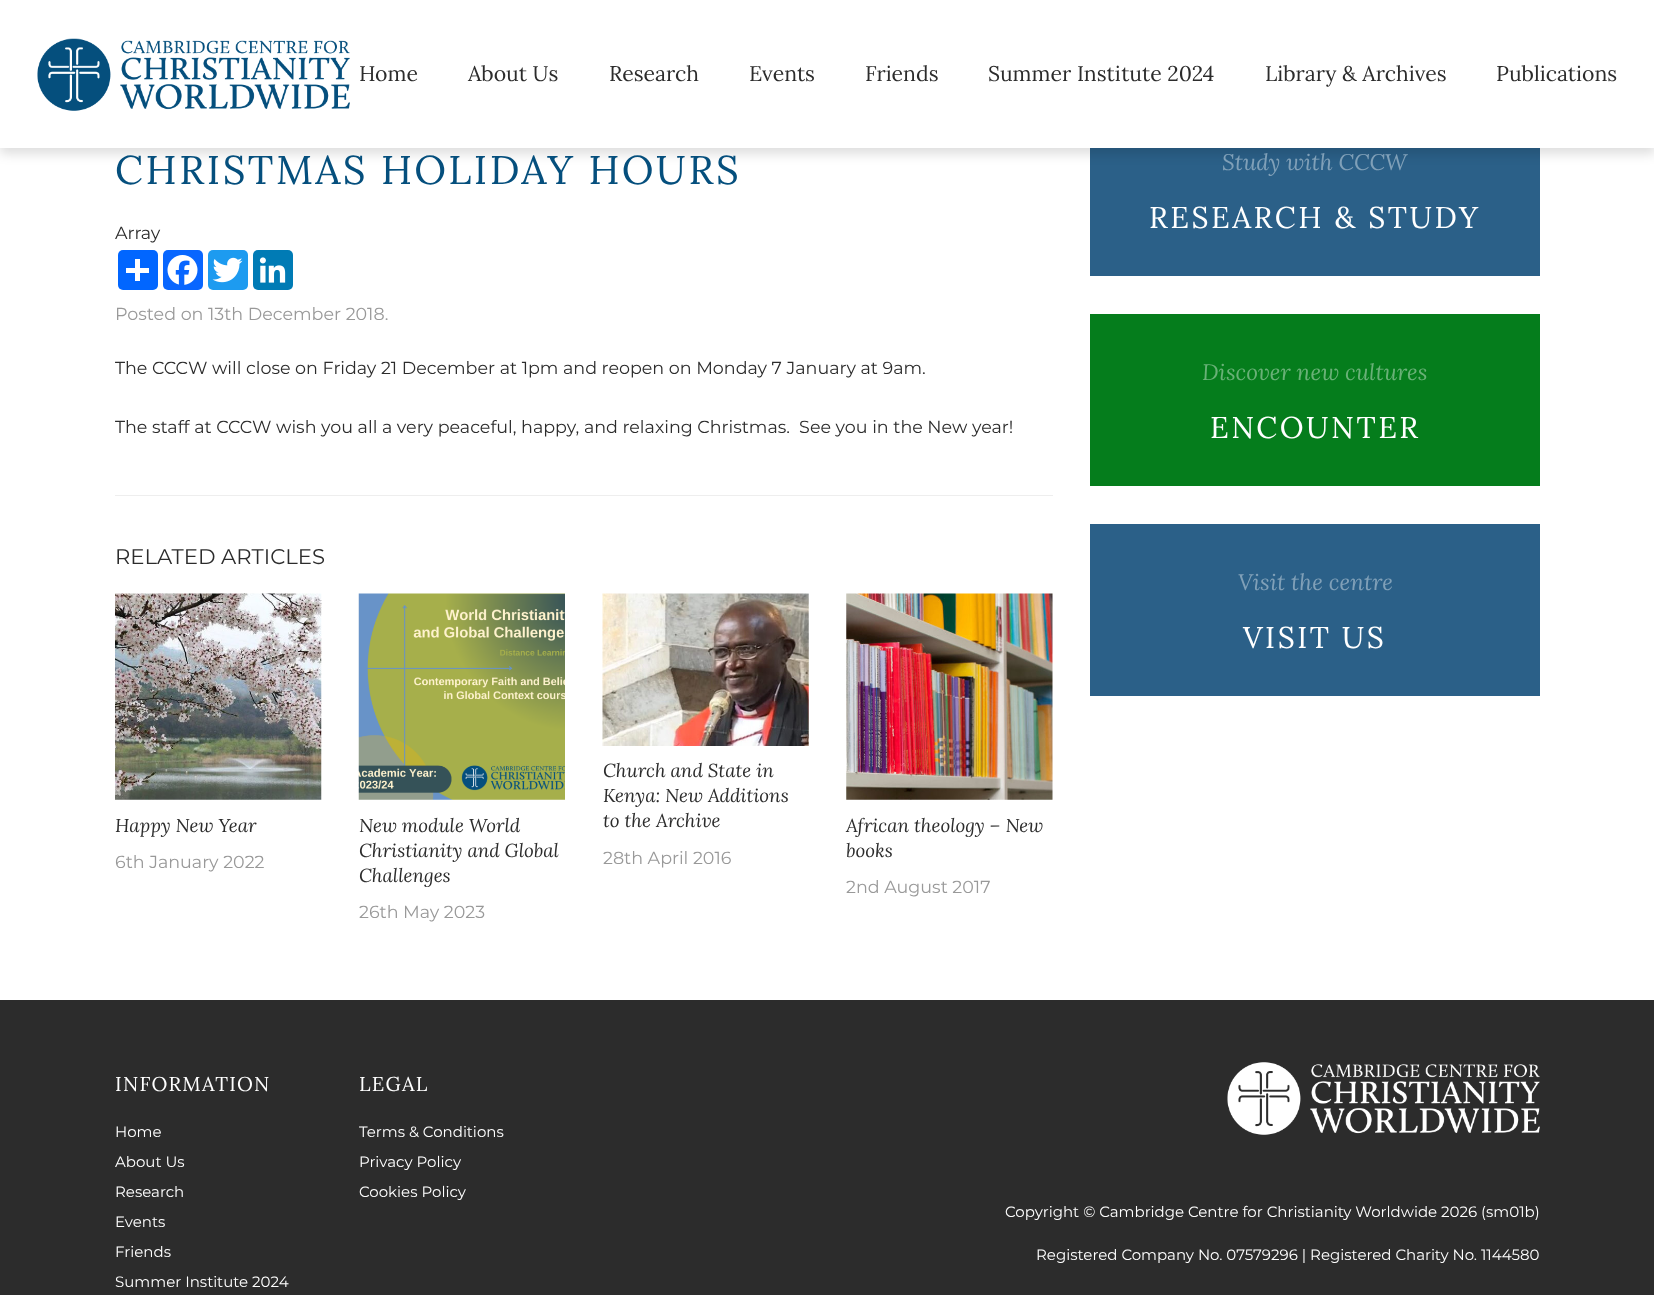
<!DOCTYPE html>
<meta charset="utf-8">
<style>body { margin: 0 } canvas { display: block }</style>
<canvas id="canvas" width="1654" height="1295"></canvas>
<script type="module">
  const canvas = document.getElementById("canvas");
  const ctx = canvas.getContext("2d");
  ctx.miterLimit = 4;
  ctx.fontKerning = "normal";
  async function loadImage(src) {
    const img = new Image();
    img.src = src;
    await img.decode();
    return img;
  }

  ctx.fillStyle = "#ffffff";
  ctx.fillRect(0, 0, 1654, 1295);
  ctx.fillStyle = "#2b6088";
  ctx.fillRect(1090, 148, 450, 128);
  ctx.fillStyle = "rgba(0, 0, 0, 0.13)";
  ctx.filter = "blur(5.5px)";
  ctx.beginPath();
  ctx.rect(0, 6, 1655, 148);
  ctx.fill();
  ctx.filter = "none";
  ctx.fillStyle = "#ffffff";
  ctx.fillRect(0, 0, 1654, 148);
  ctx.drawImage(await loadImage("img1.png"), 37, 38, 313, 73);
  ctx.font = "21.25px Lora";
  ctx.fillStyle = "#2c2c2c";
  ctx.fillText("Home", 359, 81);
  ctx.fillText("About Us", 468, 81);
  ctx.fillText("Research", 609, 81);
  ctx.fillText("Events", 749, 81);
  ctx.fillText("Friends", 865, 81);
  ctx.fillText("Summer Institute 2024", 988, 81);
  ctx.fillText("Library & Archives", 1265, 81);
  ctx.fillText("Publications", 1496, 81);
  ctx.letterSpacing = "2.5px";
  ctx.font = "40px Lora";
  ctx.fillStyle = "#054f7d";
  ctx.fillText("CHRISTMAS HOLIDAY HOURS", 115, 184);
  ctx.letterSpacing = "0px";
  ctx.font = "100 17.5px Montserrat";
  ctx.fillStyle = "#2c2c2c";
  ctx.fillText("Array", 115, 239);
  ctx.fillStyle = "#0166ff";
  ctx.beginPath();
  ctx.roundRect(118, 250, 40, 40, 5);
  ctx.fill();
  ctx.fillStyle = "#ffffff";
  ctx.fillRect(135, 259, 5, 22);
  ctx.fillRect(126, 268, 23, 5);
  ctx.fillStyle = "#0866ff";
  ctx.beginPath();
  ctx.roundRect(163, 250, 40, 40, 5);
  ctx.fill();
  ctx.drawImage(await loadImage("img2.png"), 167, 255, 31, 30);
  ctx.fillStyle = "#1d9bf0";
  ctx.beginPath();
  ctx.roundRect(208, 250, 40, 40, 5);
  ctx.fill();
  ctx.drawImage(await loadImage("img3.png"), 212, 257, 31, 26);
  ctx.fillStyle = "#007bb5";
  ctx.beginPath();
  ctx.roundRect(253, 250, 40, 40, 5);
  ctx.fill();
  ctx.drawImage(await loadImage("img4.png"), 259, 257, 27, 26);
  ctx.fillStyle = "#999999";
  ctx.fillText("Posted on 13th December 2018.", 115, 320);
  ctx.fillStyle = "#2c2c2c";
  ctx.fillText("The CCCW will close on Friday 21 December at 1pm and reopen on Monday 7 January at 9am.", 115, 374);
  ctx.fillText("The staff at CCCW wish you all a very peaceful, happy, and relaxing Christmas.  See you in the New year!", 115, 433);
  ctx.fillStyle = "#eeeeee";
  ctx.fillRect(115, 495, 938, 1);
  ctx.font = "100 21.25px Montserrat";
  ctx.fillStyle = "#2c2c2c";
  ctx.fillText("RELATED ARTICLES", 115, 564);
  ctx.drawImage(await loadImage("img5.png"), 115, 593, 207, 207);
  ctx.font = "italic 18.75px Lora";
  ctx.fillText("Happy New Year", 115, 832);
  ctx.font = "100 17.5px Montserrat";
  ctx.fillStyle = "#999999";
  ctx.fillText("6th January 2022", 115, 868);
  ctx.drawImage(await loadImage("img6.png"), 358, 593, 207, 207);
  ctx.font = "italic 18.75px Lora";
  ctx.fillStyle = "#2c2c2c";
  ctx.fillText("New module World", 359, 832);
  ctx.fillText("Christianity and Global", 359, 857);
  ctx.fillText("Challenges", 359, 882);
  ctx.font = "100 17.5px Montserrat";
  ctx.fillStyle = "#999999";
  ctx.fillText("26th May 2023", 359, 918);
  ctx.drawImage(await loadImage("img7.png"), 602, 593, 207, 153);
  ctx.font = "italic 18.75px Lora";
  ctx.fillStyle = "#2c2c2c";
  ctx.fillText("Church and State in", 603, 777);
  ctx.fillText("Kenya: New Additions", 603, 802);
  ctx.fillText("to the Archive", 603, 827);
  ctx.font = "100 17.5px Montserrat";
  ctx.fillStyle = "#999999";
  ctx.fillText("28th April 2016", 603, 864);
  ctx.drawImage(await loadImage("img8.png"), 846, 593, 207, 207);
  ctx.font = "italic 18.75px Lora";
  ctx.fillStyle = "#2c2c2c";
  ctx.fillText("African theology – New", 846, 832);
  ctx.fillText("books", 846, 857);
  ctx.font = "100 17.5px Montserrat";
  ctx.fillStyle = "#999999";
  ctx.fillText("2nd August 2017", 846, 893);
  ctx.font = "italic 22.5px Lora";
  ctx.fillStyle = "#80a0b8";
  ctx.fillText("Study with CCCW", 1222, 170);
  ctx.letterSpacing = "2.5px";
  ctx.font = "30px Lora";
  ctx.fillStyle = "#ffffff";
  ctx.fillText("RESEARCH & STUDY", 1149, 228);
  ctx.fillStyle = "#057d1c";
  ctx.fillRect(1090, 314, 450, 172);
  ctx.letterSpacing = "0px";
  ctx.font = "italic 22.5px Lora";
  ctx.fillStyle = "#69b177";
  ctx.fillText("Discover new cultures", 1202, 380);
  ctx.letterSpacing = "2.5px";
  ctx.font = "30px Lora";
  ctx.fillStyle = "#ffffff";
  ctx.fillText("ENCOUNTER", 1210, 438);
  ctx.fillStyle = "#2b6088";
  ctx.fillRect(1090, 524, 450, 172);
  ctx.letterSpacing = "0px";
  ctx.font = "italic 22.5px Lora";
  ctx.fillStyle = "#80a0b8";
  ctx.fillText("Visit the centre", 1238, 590);
  ctx.letterSpacing = "2.5px";
  ctx.font = "30px Lora";
  ctx.fillStyle = "#ffffff";
  ctx.fillText("VISIT US", 1243, 648);
  ctx.fillStyle = "#2c2c2c";
  ctx.fillRect(0, 1000, 1654, 295);
  ctx.letterSpacing = "1.25px";
  ctx.font = "20px Lora";
  ctx.fillStyle = "#ffffff";
  ctx.fillText("INFORMATION", 115, 1091);
  ctx.letterSpacing = "0px";
  ctx.font = "100 15px Montserrat";
  ctx.fillText("Home", 115, 1137);
  ctx.fillText("About Us", 115, 1167);
  ctx.fillText("Research", 115, 1197);
  ctx.fillText("Events", 115, 1227);
  ctx.fillText("Friends", 115, 1257);
  ctx.fillText("Summer Institute 2024", 115, 1287);
  ctx.letterSpacing = "1.25px";
  ctx.font = "20px Lora";
  ctx.fillText("LEGAL", 359, 1091);
  ctx.letterSpacing = "0px";
  ctx.font = "100 15px Montserrat";
  ctx.fillText("Terms & Conditions", 359, 1137);
  ctx.fillText("Privacy Policy", 359, 1167);
  ctx.fillText("Cookies Policy", 359, 1197);
  ctx.drawImage(await loadImage("img9.png"), 1227, 1062, 313, 73);
  ctx.fillText("Copyright © Cambridge Centre for Christianity Worldwide 2026 (sm01b)", 1005, 1217);
  ctx.fillText("Registered Company No. 07579296 | Registered Charity No. 1144580", 1036, 1260);
</script>
